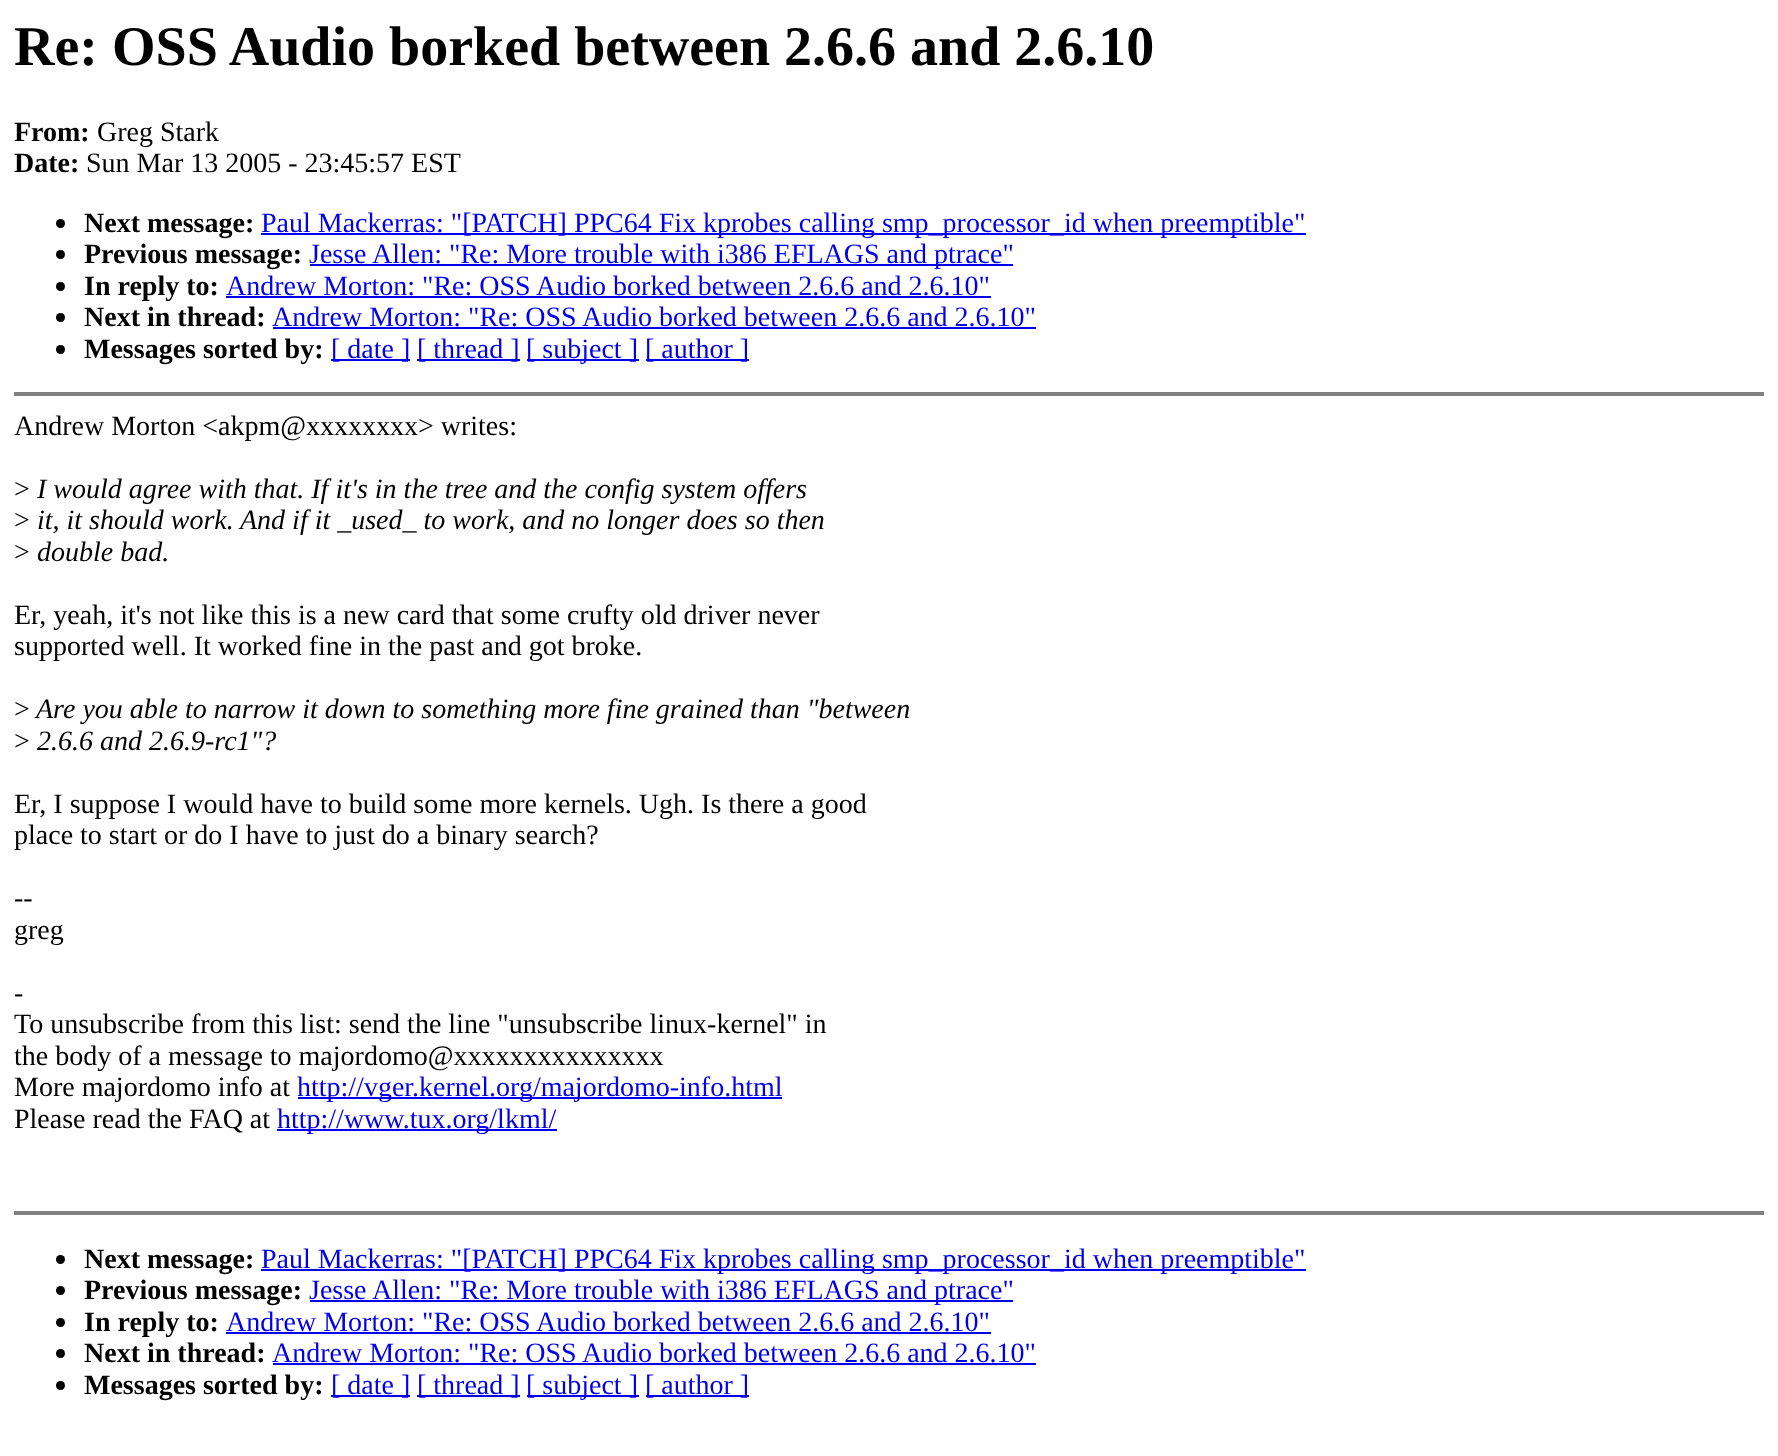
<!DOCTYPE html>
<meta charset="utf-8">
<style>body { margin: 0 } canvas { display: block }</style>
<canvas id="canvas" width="1778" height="1456"></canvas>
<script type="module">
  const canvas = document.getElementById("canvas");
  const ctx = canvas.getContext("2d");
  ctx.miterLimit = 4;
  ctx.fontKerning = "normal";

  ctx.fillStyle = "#ffffff";
  ctx.fillRect(0, 0, 1778, 1456);
  ctx.font = "bold 56px Liberation Serif";
  ctx.fillStyle = "#000000";
  ctx.fillText("Re: OSS Audio borked between 2.6.6 and 2.6.10", 14, 65);
  ctx.font = "bold 28px Liberation Serif";
  ctx.fillText("From:", 14, 141);
  ctx.font = "28px Liberation Serif";
  ctx.fillText("Greg Stark", 97, 141);
  ctx.font = "bold 28px Liberation Serif";
  ctx.fillText("Date:", 14, 172);
  ctx.font = "28px Liberation Serif";
  ctx.fillText("Sun Mar 13 2005 - 23:45:57 EST", 86, 172);
  ctx.beginPath();
  ctx.arc(60.5, 223.5, 4.5, 0, Math.PI * 2);
  ctx.fill();
  ctx.font = "bold 28px Liberation Serif";
  ctx.fillText("Next message:", 84, 232);
  ctx.fillStyle = "#0000ee";
  ctx.fillRect(261, 233, 1045, 2);
  ctx.font = "28px Liberation Serif";
  ctx.fillText("Paul Mackerras: \"[PATCH] PPC64 Fix kprobes calling smp_processor_id when preemptible\"", 261, 232);
  ctx.fillStyle = "#000000";
  ctx.beginPath();
  ctx.arc(60.5, 254.5, 4.5, 0, Math.PI * 2);
  ctx.fill();
  ctx.font = "bold 28px Liberation Serif";
  ctx.fillText("Previous message:", 84, 263);
  ctx.fillStyle = "#0000ee";
  ctx.fillRect(310, 264, 703, 2);
  ctx.font = "28px Liberation Serif";
  ctx.fillText("Jesse Allen: \"Re: More trouble with i386 EFLAGS and ptrace\"", 309, 263);
  ctx.fillStyle = "#000000";
  ctx.beginPath();
  ctx.arc(60.5, 286.5, 4.5, 0, Math.PI * 2);
  ctx.fill();
  ctx.font = "bold 28px Liberation Serif";
  ctx.fillText("In reply to:", 84, 295);
  ctx.font = "28px Liberation Serif";
  ctx.fillStyle = "#0000ee";
  ctx.fillText("Andrew Morton: \"Re: OSS Audio borked between 2.6.6 and 2.6.10\"", 226, 295);
  ctx.fillRect(226, 296, 765, 2);
  ctx.fillStyle = "#000000";
  ctx.beginPath();
  ctx.arc(60.5, 317.5, 4.5, 0, Math.PI * 2);
  ctx.fill();
  ctx.font = "bold 28px Liberation Serif";
  ctx.fillText("Next in thread:", 84, 326);
  ctx.font = "28px Liberation Serif";
  ctx.fillStyle = "#0000ee";
  ctx.fillText("Andrew Morton: \"Re: OSS Audio borked between 2.6.6 and 2.6.10\"", 272, 326);
  ctx.fillRect(273, 327, 763, 2);
  ctx.fillStyle = "#000000";
  ctx.beginPath();
  ctx.arc(60.5, 349.5, 4.5, 0, Math.PI * 2);
  ctx.fill();
  ctx.font = "bold 28px Liberation Serif";
  ctx.fillText("Messages sorted by:", 84, 358);
  ctx.fillStyle = "#0000ee";
  ctx.fillRect(331, 359, 79, 2);
  ctx.font = "28px Liberation Serif";
  ctx.fillText("[ date ]", 331, 358);
  ctx.fillRect(417, 359, 103, 2);
  ctx.fillText("[ thread ]", 417, 358);
  ctx.fillRect(527, 359, 112, 2);
  ctx.fillText("[ subject ]", 526, 358);
  ctx.fillRect(646, 359, 103, 2);
  ctx.fillText("[ author ]", 645, 358);
  ctx.fillStyle = "#808080";
  ctx.fillRect(14, 392, 1750, 4);
  ctx.fillStyle = "#000000";
  ctx.fillText("Andrew Morton <akpm@xxxxxxxx> writes:", 14, 435);
  ctx.fillText(">", 14, 498);
  ctx.font = "italic 28px Liberation Serif";
  ctx.fillText("I would agree with that. If it's in the tree and the config system offers", 37, 498);
  ctx.font = "28px Liberation Serif";
  ctx.fillText(">", 14, 529);
  ctx.font = "italic 28px Liberation Serif";
  ctx.fillText("it, it should work.", 37, 529);
  ctx.fillText("And if it _used_ to work, and no longer does so then", 240, 529);
  ctx.font = "28px Liberation Serif";
  ctx.fillText(">", 14, 561);
  ctx.font = "italic 28px Liberation Serif";
  ctx.fillText("double bad.", 37, 561);
  ctx.font = "28px Liberation Serif";
  ctx.fillText("Er, yeah, it's not like this is a new card that some crufty old driver never", 14, 624);
  ctx.fillText("supported well. It worked fine in the past and got broke.", 14, 655);
  ctx.fillText(">", 14, 718);
  ctx.font = "italic 28px Liberation Serif";
  ctx.fillText("Are you able to narrow it down to something more fine grained than \"between", 36, 718);
  ctx.font = "28px Liberation Serif";
  ctx.fillText(">", 14, 750);
  ctx.font = "italic 28px Liberation Serif";
  ctx.fillText("2.6.6 and 2.6.9-rc1\"?", 37, 750);
  ctx.font = "28px Liberation Serif";
  ctx.fillText("Er, I suppose I would have to build some more kernels. Ugh. Is there a good", 14, 813);
  ctx.fillText("place to start or do I have to just do a binary search?", 14, 844);
  ctx.fillText("--", 14, 907);
  ctx.fillText("greg", 14, 939);
  ctx.fillText("-", 14, 1002);
  ctx.fillText("To unsubscribe from this list: send the line \"unsubscribe linux-kernel\" in", 14, 1033);
  ctx.fillText("the body of a message to majordomo@xxxxxxxxxxxxxxx", 14, 1065);
  ctx.fillText("More majordomo info at", 14, 1096);
  ctx.fillStyle = "#0000ee";
  ctx.fillRect(298, 1097, 484, 2);
  ctx.fillText("http://vger.kernel.org/majordomo-info.html", 297, 1096);
  ctx.fillStyle = "#000000";
  ctx.fillText("Please read the FAQ at", 14, 1128);
  ctx.fillStyle = "#0000ee";
  ctx.fillRect(277, 1129, 280, 2);
  ctx.fillText("http://www.tux.org/lkml/", 277, 1128);
  ctx.fillStyle = "#808080";
  ctx.fillRect(14, 1211, 1750, 4);
  ctx.fillStyle = "#000000";
  ctx.beginPath();
  ctx.arc(60.5, 1259.5, 4.5, 0, Math.PI * 2);
  ctx.fill();
  ctx.font = "bold 28px Liberation Serif";
  ctx.fillText("Next message:", 84, 1268);
  ctx.fillStyle = "#0000ee";
  ctx.fillRect(261, 1269, 1045, 2);
  ctx.font = "28px Liberation Serif";
  ctx.fillText("Paul Mackerras: \"[PATCH] PPC64 Fix kprobes calling smp_processor_id when preemptible\"", 261, 1268);
  ctx.fillStyle = "#000000";
  ctx.beginPath();
  ctx.arc(60.5, 1290.5, 4.5, 0, Math.PI * 2);
  ctx.fill();
  ctx.font = "bold 28px Liberation Serif";
  ctx.fillText("Previous message:", 84, 1299);
  ctx.fillStyle = "#0000ee";
  ctx.fillRect(310, 1300, 703, 2);
  ctx.font = "28px Liberation Serif";
  ctx.fillText("Jesse Allen: \"Re: More trouble with i386 EFLAGS and ptrace\"", 309, 1299);
  ctx.fillStyle = "#000000";
  ctx.beginPath();
  ctx.arc(60.5, 1322.5, 4.5, 0, Math.PI * 2);
  ctx.fill();
  ctx.font = "bold 28px Liberation Serif";
  ctx.fillText("In reply to:", 84, 1331);
  ctx.font = "28px Liberation Serif";
  ctx.fillStyle = "#0000ee";
  ctx.fillText("Andrew Morton: \"Re: OSS Audio borked between 2.6.6 and 2.6.10\"", 226, 1331);
  ctx.fillRect(226, 1332, 765, 2);
  ctx.fillStyle = "#000000";
  ctx.beginPath();
  ctx.arc(60.5, 1353.5, 4.5, 0, Math.PI * 2);
  ctx.fill();
  ctx.font = "bold 28px Liberation Serif";
  ctx.fillText("Next in thread:", 84, 1362);
  ctx.font = "28px Liberation Serif";
  ctx.fillStyle = "#0000ee";
  ctx.fillText("Andrew Morton: \"Re: OSS Audio borked between 2.6.6 and 2.6.10\"", 272, 1362);
  ctx.fillRect(273, 1363, 763, 2);
  ctx.fillStyle = "#000000";
  ctx.beginPath();
  ctx.arc(60.5, 1385.5, 4.5, 0, Math.PI * 2);
  ctx.fill();
  ctx.font = "bold 28px Liberation Serif";
  ctx.fillText("Messages sorted by:", 84, 1394);
  ctx.fillStyle = "#0000ee";
  ctx.fillRect(331, 1395, 79, 2);
  ctx.font = "28px Liberation Serif";
  ctx.fillText("[ date ]", 331, 1394);
  ctx.fillRect(417, 1395, 103, 2);
  ctx.fillText("[ thread ]", 417, 1394);
  ctx.fillRect(527, 1395, 112, 2);
  ctx.fillText("[ subject ]", 526, 1394);
  ctx.fillRect(646, 1395, 103, 2);
  ctx.fillText("[ author ]", 645, 1394);
</script>
